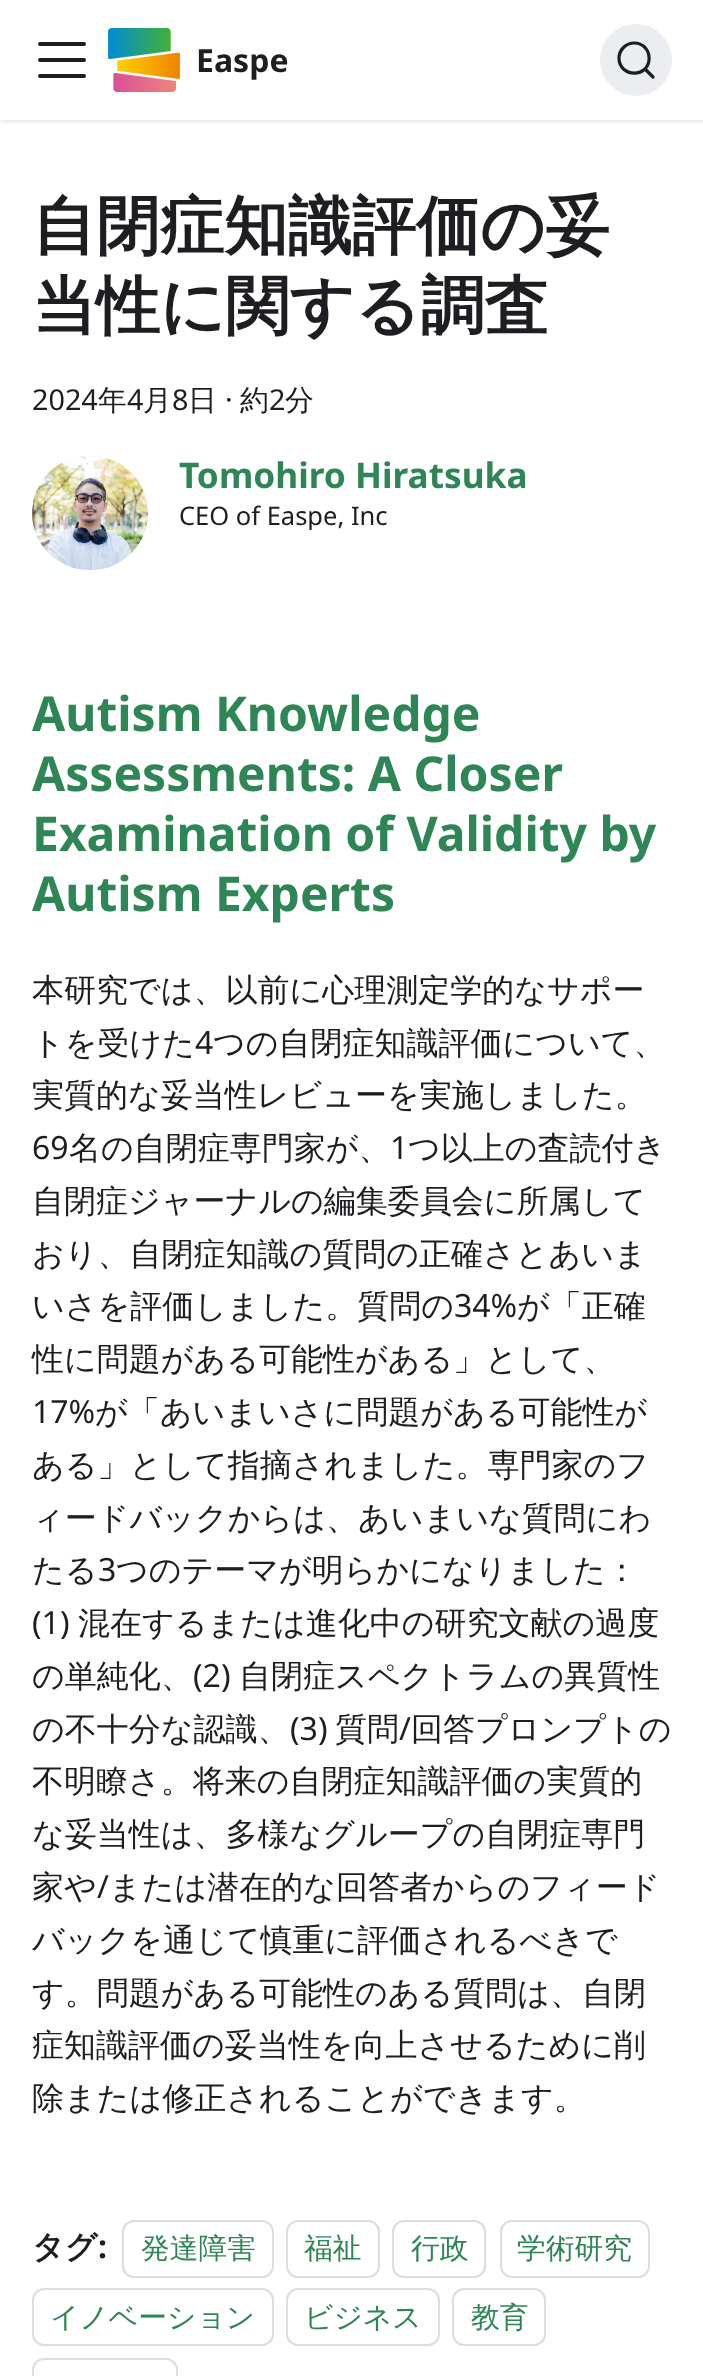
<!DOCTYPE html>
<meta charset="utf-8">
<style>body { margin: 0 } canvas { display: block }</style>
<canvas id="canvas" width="703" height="2376"></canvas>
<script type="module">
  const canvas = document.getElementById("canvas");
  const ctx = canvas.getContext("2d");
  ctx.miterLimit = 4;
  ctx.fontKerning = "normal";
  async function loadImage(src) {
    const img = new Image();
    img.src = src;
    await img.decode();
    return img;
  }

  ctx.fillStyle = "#ffffff";
  ctx.fillRect(0, 0, 703, 2376);
  ctx.save();
  ctx.beginPath();
  ctx.rect(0, 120, 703, 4);
  ctx.clip();
  ctx.fillStyle = "rgba(0, 0, 0, 0.1)";
  ctx.filter = "blur(2px)";
  ctx.beginPath();
  ctx.rect(0, 2, 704, 120);
  ctx.fill();
  ctx.filter = "none";
  ctx.restore();
  ctx.beginPath();
  ctx.moveTo(40, 44);
  ctx.lineTo(84, 44);
  ctx.moveTo(40, 60);
  ctx.lineTo(84, 60);
  ctx.moveTo(40, 76);
  ctx.lineTo(84, 76);
  ctx.strokeStyle = "#1c1e21";
  ctx.lineWidth = 4;
  ctx.lineCap = "round";
  ctx.stroke();
  ctx.drawImage(await loadImage("img1.png"), 108, 28, 72, 64);
  ctx.font = "bold 32px Noto Sans";
  ctx.fillStyle = "#1c1e21";
  ctx.fillText("Easpe", 196, 72);
  ctx.fillStyle = "#ebedf0";
  ctx.beginPath();
  ctx.arc(636, 60, 36, 0, Math.PI * 2);
  ctx.fill();
  ctx.beginPath();
  ctx.moveTo(645, 69);
  ctx.lineTo(653, 77);
  ctx.lineTo(645, 69);
  ctx.bezierCurveTo(639, 74.5, 629.5, 74.5, 623.5, 69);
  ctx.bezierCurveTo(617.5, 63, 617.5, 53.5, 623.5, 47.5);
  ctx.bezierCurveTo(629.5, 41.5, 639, 41.5, 645, 47.5);
  ctx.bezierCurveTo(650.5, 53.5, 650.5, 63, 645, 69);
  ctx.closePath();
  ctx.lineWidth = 3.2;
  ctx.lineJoin = "round";
  ctx.stroke();
  ctx.font = "bold 64px WenQuanYi Zen Hei";
  ctx.fillStyle = "#1c1e21";
  ctx.fillText("自閉症知識評価の妥", 32, 248);
  ctx.fillText("当性に関する調査", 32, 328);
  ctx.font = "28.75px Noto Sans";
  ctx.fillText("2024", 32, 410);
  ctx.font = "500 28.75px WenQuanYi Zen Hei";
  ctx.fillText("年", 98, 410);
  ctx.font = "28.75px Noto Sans";
  ctx.fillText("4", 127, 410);
  ctx.font = "500 28.75px WenQuanYi Zen Hei";
  ctx.fillText("月", 143, 410);
  ctx.font = "28.75px Noto Sans";
  ctx.fillText("8", 172, 410);
  ctx.font = "500 28.75px WenQuanYi Zen Hei";
  ctx.fillText("日", 188, 410);
  ctx.font = "28.75px Noto Sans";
  ctx.fillText("·", 225, 410);
  ctx.font = "500 28.75px WenQuanYi Zen Hei";
  ctx.fillText("約", 240, 410);
  ctx.font = "28.75px Noto Sans";
  ctx.fillText("2", 269, 410);
  ctx.font = "500 28.75px WenQuanYi Zen Hei";
  ctx.fillText("分", 285, 410);
  ctx.drawImage(await loadImage("img2.png"), 32, 456, 116, 114);
  ctx.font = "bold 35.25px Noto Sans";
  ctx.fillStyle = "#2e8555";
  ctx.fillText("Tomohiro Hiratsuka", 179, 488);
  ctx.save();
  ctx.beginPath();
  ctx.rect(180, 498, 208, 32);
  ctx.clip();
  ctx.font = "25.5px Noto Sans";
  ctx.fillStyle = "#1c1e21";
  ctx.fillText("CEO of Easpe, Inc", 179, 525);
  ctx.restore();
  ctx.font = "bold 48px Noto Sans";
  ctx.fillText("Autism Knowledge", 32, 731);
  ctx.fillText("Assessments: A Closer", 32, 791);
  ctx.fillText("Examination of Validity by", 32, 851);
  ctx.fillText("Autism Experts", 32, 911);
  ctx.font = "500 32px WenQuanYi Zen Hei";
  ctx.fillStyle = "#1c1e21";
  ctx.fillText("本研究では、以前に心理測定学的なサポー", 32, 1001);
  ctx.fillText("トを受けた", 32, 1054);
  ctx.font = "32px Noto Sans";
  ctx.fillText("4", 195, 1054);
  ctx.font = "500 32px WenQuanYi Zen Hei";
  ctx.fillText("つの自閉症知識評価について、", 213, 1054);
  ctx.fillText("実質的な妥当性レビューを実施しました。", 32, 1106);
  ctx.font = "32px Noto Sans";
  ctx.fillText("69", 32, 1159);
  ctx.font = "500 32px WenQuanYi Zen Hei";
  ctx.fillText("名の自閉症専門家が、", 69, 1159);
  ctx.font = "32px Noto Sans";
  ctx.fillText("1", 390, 1159);
  ctx.font = "500 32px WenQuanYi Zen Hei";
  ctx.fillText("つ以上の査読付き", 408, 1159);
  ctx.fillText("自閉症ジャーナルの編集委員会に所属して", 32, 1212);
  ctx.fillText("おり、自閉症知識の質問の正確さとあいま", 32, 1265);
  ctx.fillText("いさを評価しました。質問の", 32, 1317);
  ctx.font = "32px Noto Sans";
  ctx.fillText("34%", 454, 1317);
  ctx.font = "500 32px WenQuanYi Zen Hei";
  ctx.fillText("が「正確", 517, 1317);
  ctx.fillText("性に問題がある可能性がある」として、", 32, 1370);
  ctx.font = "32px Noto Sans";
  ctx.fillText("17%", 32, 1423);
  ctx.font = "500 32px WenQuanYi Zen Hei";
  ctx.fillText("が「あいまいさに問題がある可能性が", 95, 1423);
  ctx.fillText("ある」として指摘されました。専門家のフ", 32, 1476);
  ctx.fillText("ィードバックからは、あいまいな質問にわ", 32, 1529);
  ctx.fillText("たる", 32, 1581);
  ctx.font = "32px Noto Sans";
  ctx.fillText("3", 98, 1581);
  ctx.font = "500 32px WenQuanYi Zen Hei";
  ctx.fillText("つのテーマが明らかになりました：", 116, 1581);
  ctx.font = "32px Noto Sans";
  ctx.fillText("(1)", 32, 1634);
  ctx.font = "500 32px WenQuanYi Zen Hei";
  ctx.fillText("混在するまたは進化中の研究文献の過度", 78, 1634);
  ctx.fillText("の単純化、", 32, 1687);
  ctx.font = "32px Noto Sans";
  ctx.fillText("(2)", 193, 1687);
  ctx.font = "500 32px WenQuanYi Zen Hei";
  ctx.fillText("自閉症スペクトラムの異質性", 239, 1687);
  ctx.fillText("の不十分な認識、", 32, 1740);
  ctx.font = "32px Noto Sans";
  ctx.fillText("(3)", 290, 1740);
  ctx.font = "500 32px WenQuanYi Zen Hei";
  ctx.fillText("質問", 335, 1740);
  ctx.font = "32px Noto Sans";
  ctx.fillText("/", 399, 1740);
  ctx.font = "500 32px WenQuanYi Zen Hei";
  ctx.fillText("回答プロンプトの", 411, 1740);
  ctx.fillText("不明瞭さ。将来の自閉症知識評価の実質的", 32, 1792);
  ctx.fillText("な妥当性は、多様なグループの自閉症専門", 32, 1845);
  ctx.fillText("家や", 32, 1898);
  ctx.font = "32px Noto Sans";
  ctx.fillText("/", 97, 1898);
  ctx.font = "500 32px WenQuanYi Zen Hei";
  ctx.fillText("または潜在的な回答者からのフィード", 109, 1898);
  ctx.fillText("バックを通じて慎重に評価されるべきで", 32, 1951);
  ctx.fillText("す。問題がある可能性のある質問は、自閉", 32, 2004);
  ctx.fillText("症知識評価の妥当性を向上させるために削", 32, 2056);
  ctx.fillText("除または修正されることができます。", 32, 2109);
  ctx.font = "bold 32px WenQuanYi Zen Hei";
  ctx.fillText("タグ", 32, 2258);
  ctx.beginPath();
  ctx.roundRect(123, 2221, 150, 56, 11);
  ctx.strokeStyle = "#dadde1";
  ctx.lineWidth = 2;
  ctx.lineJoin = "miter";
  ctx.stroke();
  ctx.font = "500 28.75px WenQuanYi Zen Hei";
  ctx.fillStyle = "#2e8555";
  ctx.fillText("発達障害", 141, 2258);
  ctx.beginPath();
  ctx.roundRect(287, 2221, 92, 56, 11);
  ctx.stroke();
  ctx.fillText("福祉", 304, 2258);
  ctx.beginPath();
  ctx.roundRect(393, 2221, 92, 56, 11);
  ctx.stroke();
  ctx.fillText("行政", 411, 2258);
  ctx.beginPath();
  ctx.roundRect(501, 2221, 148, 56, 11);
  ctx.stroke();
  ctx.fillText("学術研究", 517, 2258);
  ctx.beginPath();
  ctx.roundRect(33, 2289, 240, 56, 11);
  ctx.stroke();
  ctx.fillText("イノベーション", 50, 2327);
  ctx.beginPath();
  ctx.roundRect(287, 2289, 152, 56, 11);
  ctx.stroke();
  ctx.fillText("ビジネス", 304, 2327);
  ctx.beginPath();
  ctx.roundRect(453, 2289, 92, 56, 11);
  ctx.stroke();
  ctx.fillText("教育", 471, 2327);
  ctx.beginPath();
  ctx.roundRect(33, 2359, 144, 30, 11);
  ctx.stroke();
  ctx.font = "bold 32px Noto Sans";
  ctx.fillStyle = "#1c1e21";
  ctx.fillText(":", 98, 2258);
</script>
